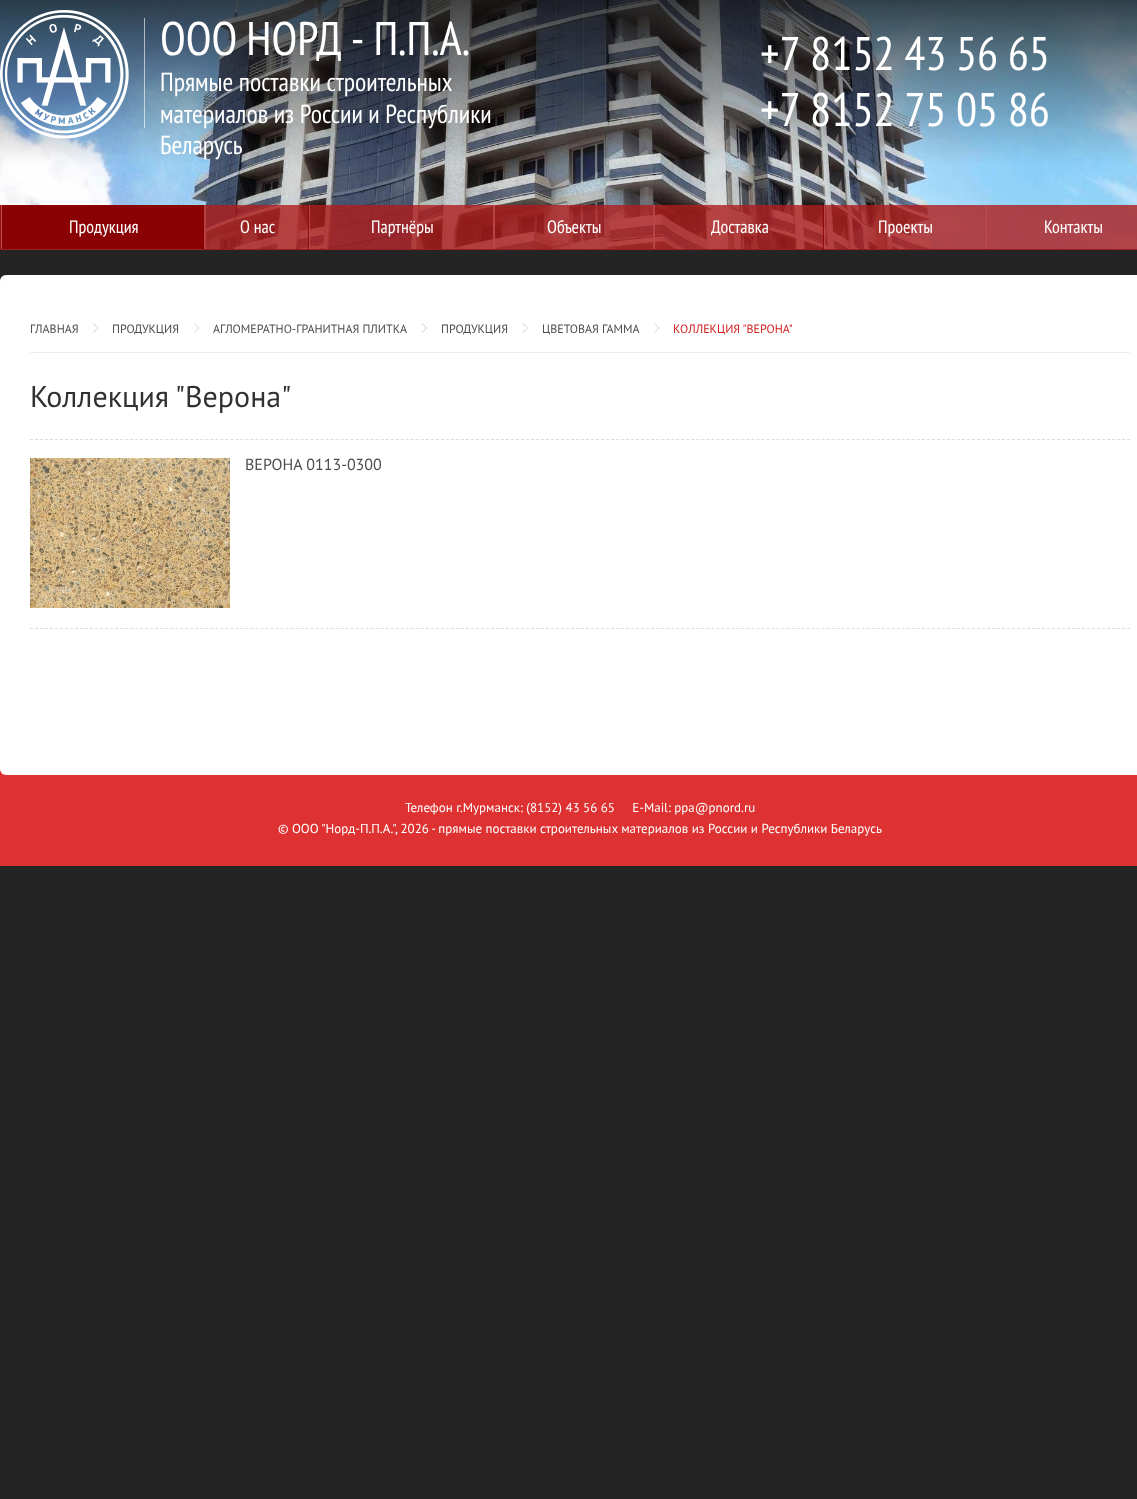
<!DOCTYPE html>
<meta charset="utf-8">
<style>body { margin: 0 } canvas { display: block }</style>
<canvas id="canvas" width="1137" height="1499"></canvas>
<script type="module">
  const canvas = document.getElementById("canvas");
  const ctx = canvas.getContext("2d");
  ctx.miterLimit = 4;
  ctx.fontKerning = "normal";
  async function loadImage(src) {
    const img = new Image();
    img.src = src;
    await img.decode();
    return img;
  }

  ctx.fillStyle = "#242424";
  ctx.fillRect(0, 0, 1137, 1499);
  ctx.drawImage(await loadImage("img1.png"), 0, 0, 1137, 249);
  ctx.drawImage(await loadImage("img2.png"), 0, 10, 129, 129);
  ctx.fillStyle = "rgba(255, 255, 255, 0.6)";
  ctx.fillRect(144, 18, 1, 110);
  ctx.wordSpacing = "-1px";
  ctx.font = "47px PT Sans Narrow";
  ctx.fillStyle = "#ffffff";
  ctx.fillText("ООО НОРД - П.П.А.", 160, 55);
  ctx.wordSpacing = "0px";
  ctx.font = "26px PT Sans Narrow";
  ctx.fillText("Прямые поставки строительных", 160, 91);
  ctx.fillText("материалов из России и Республики", 160, 123);
  ctx.fillText("Беларусь", 160, 154);
  ctx.wordSpacing = "-0.5px";
  ctx.font = "47px PT Sans Narrow";
  ctx.fillText("+7 8152 43 56 65", 760, 70);
  ctx.fillText("+7 8152 75 05 86", 760, 126);
  ctx.fillStyle = "rgba(175, 29, 29, 0.8)";
  ctx.fillRect(0, 205, 1137, 44);
  ctx.fillStyle = "#991e20";
  ctx.fillRect(0, 249, 1137, 1);
  ctx.fillStyle = "rgba(139, 2, 4, 0.8)";
  ctx.fillRect(0, 205, 1, 45);
  ctx.fillStyle = "#be4f50";
  ctx.fillRect(1, 205, 1, 44);
  ctx.fillStyle = "#8b0204";
  ctx.fillRect(2, 205, 202, 44);
  ctx.wordSpacing = "0px";
  ctx.font = "18px PT Sans Narrow";
  ctx.fillStyle = "#ffffff";
  ctx.fillText("Продукция", 69, 233);
  ctx.fillStyle = "rgba(139, 2, 4, 0.8)";
  ctx.fillRect(204, 249, 1, 1);
  ctx.fillStyle = "#b44042";
  ctx.fillRect(204, 205, 2, 44);
  ctx.fillStyle = "#ffffff";
  ctx.fillText("О нас", 240, 233);
  ctx.fillStyle = "rgba(139, 2, 4, 0.8)";
  ctx.fillRect(308, 205, 1, 45);
  ctx.fillStyle = "rgba(190, 80, 81, 0.8)";
  ctx.fillRect(309, 205, 1, 44);
  ctx.fillStyle = "#ffffff";
  ctx.fillText("Партнёры", 371, 233);
  ctx.fillStyle = "rgba(139, 2, 4, 0.8)";
  ctx.fillRect(493, 205, 1, 45);
  ctx.fillStyle = "rgba(190, 80, 81, 0.8)";
  ctx.fillRect(493, 205, 2, 44);
  ctx.fillStyle = "#ffffff";
  ctx.fillText("Объекты", 547, 233);
  ctx.fillStyle = "rgba(139, 2, 4, 0.8)";
  ctx.fillRect(653, 205, 1, 45);
  ctx.fillStyle = "rgba(190, 80, 81, 0.8)";
  ctx.fillRect(653, 205, 2, 44);
  ctx.fillStyle = "#ffffff";
  ctx.fillText("Доставка", 711, 233);
  ctx.fillStyle = "rgba(139, 2, 4, 0.8)";
  ctx.fillRect(823, 205, 1, 45);
  ctx.fillStyle = "rgba(190, 80, 81, 0.8)";
  ctx.fillRect(824, 205, 1, 44);
  ctx.fillStyle = "#ffffff";
  ctx.fillText("Проекты", 878, 233);
  ctx.fillStyle = "rgba(139, 2, 4, 0.8)";
  ctx.fillRect(985, 205, 1, 45);
  ctx.fillStyle = "rgba(190, 80, 81, 0.8)";
  ctx.fillRect(985, 205, 2, 44);
  ctx.fillStyle = "#ffffff";
  ctx.fillText("Контакты", 1044, 233);
  ctx.fillStyle = "#de3232";
  ctx.fillRect(0, 769, 1137, 97);
  ctx.fillStyle = "#ffffff";
  ctx.beginPath();
  ctx.roundRect(0, 275, 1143, 500, 6);
  ctx.fill();
  ctx.fillStyle = "#ededed";
  ctx.fillRect(30, 352, 1100, 1);
  ctx.font = "12px PT Sans";
  ctx.fillStyle = "#4d4d4d";
  ctx.fillText("ГЛАВНАЯ", 30, 333);
  ctx.fillStyle = "#dddddd";
  ctx.beginPath();
  ctx.moveTo(98.5, 328);
  ctx.lineTo(94, 333);
  ctx.lineTo(93, 332);
  ctx.lineTo(98, 327.5);
  ctx.closePath();
  ctx.fill();
  ctx.beginPath();
  ctx.moveTo(98.5, 328);
  ctx.lineTo(98, 328.5);
  ctx.lineTo(93, 324);
  ctx.lineTo(94, 323);
  ctx.closePath();
  ctx.fill();
  ctx.fillStyle = "#4d4d4d";
  ctx.fillText("ПРОДУКЦИЯ", 112, 333);
  ctx.fillStyle = "#dddddd";
  ctx.beginPath();
  ctx.moveTo(199.5, 328);
  ctx.lineTo(194.5, 333);
  ctx.lineTo(194, 332);
  ctx.lineTo(199, 327.5);
  ctx.closePath();
  ctx.fill();
  ctx.beginPath();
  ctx.moveTo(199.5, 328);
  ctx.lineTo(199, 328.5);
  ctx.lineTo(194, 324);
  ctx.lineTo(194.5, 323);
  ctx.closePath();
  ctx.fill();
  ctx.fillStyle = "#4d4d4d";
  ctx.fillText("АГЛОМЕРАТНО-ГРАНИТНАЯ ПЛИТКА", 213, 333);
  ctx.fillStyle = "#dddddd";
  ctx.beginPath();
  ctx.moveTo(427.5, 328);
  ctx.lineTo(422.5, 333);
  ctx.lineTo(421.5, 332);
  ctx.lineTo(426.5, 327.5);
  ctx.closePath();
  ctx.fill();
  ctx.beginPath();
  ctx.moveTo(427.5, 328);
  ctx.lineTo(426.5, 328.5);
  ctx.lineTo(421.5, 324);
  ctx.lineTo(422.5, 323);
  ctx.closePath();
  ctx.fill();
  ctx.fillStyle = "#4d4d4d";
  ctx.fillText("ПРОДУКЦИЯ", 441, 333);
  ctx.fillStyle = "#dddddd";
  ctx.beginPath();
  ctx.moveTo(528, 328);
  ctx.lineTo(523.5, 333);
  ctx.lineTo(522.5, 332);
  ctx.lineTo(527.5, 327.5);
  ctx.closePath();
  ctx.fill();
  ctx.beginPath();
  ctx.moveTo(528, 328);
  ctx.lineTo(527.5, 328.5);
  ctx.lineTo(522.5, 324);
  ctx.lineTo(523.5, 323);
  ctx.closePath();
  ctx.fill();
  ctx.fillStyle = "#4d4d4d";
  ctx.fillText("ЦВЕТОВАЯ ГАММА", 542, 333);
  ctx.fillStyle = "#dddddd";
  ctx.beginPath();
  ctx.moveTo(659.5, 328);
  ctx.lineTo(654.5, 333);
  ctx.lineTo(654, 332);
  ctx.lineTo(659, 327.5);
  ctx.closePath();
  ctx.fill();
  ctx.beginPath();
  ctx.moveTo(659.5, 328);
  ctx.lineTo(659, 328.5);
  ctx.lineTo(654, 324);
  ctx.lineTo(654.5, 323);
  ctx.closePath();
  ctx.fill();
  ctx.fillStyle = "#d22222";
  ctx.fillText("КОЛЛЕКЦИЯ \"ВЕРОНА\"", 673, 333);
  ctx.font = "30px PT Sans";
  ctx.fillStyle = "#313131";
  ctx.fillText("Коллекция \"Верона\"", 30, 407);
  ctx.beginPath();
  ctx.moveTo(30, 439.5);
  ctx.lineTo(1130, 439.5);
  ctx.strokeStyle = "#dddddd";
  ctx.setLineDash([3, 2.01]);
  ctx.stroke();
  ctx.beginPath();
  ctx.moveTo(30, 628.5);
  ctx.lineTo(1130, 628.5);
  ctx.stroke();
  ctx.drawImage(await loadImage("img3.png"), 30, 458, 200, 150);
  ctx.font = "16px PT Sans";
  ctx.fillStyle = "#4d4d4d";
  ctx.fillText("ВЕРОНА 0113-0300", 245, 470);
  ctx.font = "13px PT Sans";
  ctx.fillStyle = "#ffffff";
  ctx.fillText("Телефон г.Мурманск: (8152) 43 56 65     E-Mail: ppa@pnord.ru", 405, 812);
  ctx.fillText("© OOO \"Норд-П.П.А.\", 2026 - прямые поставки строительных материалов из России и Республики Беларусь", 278, 833);
</script>
